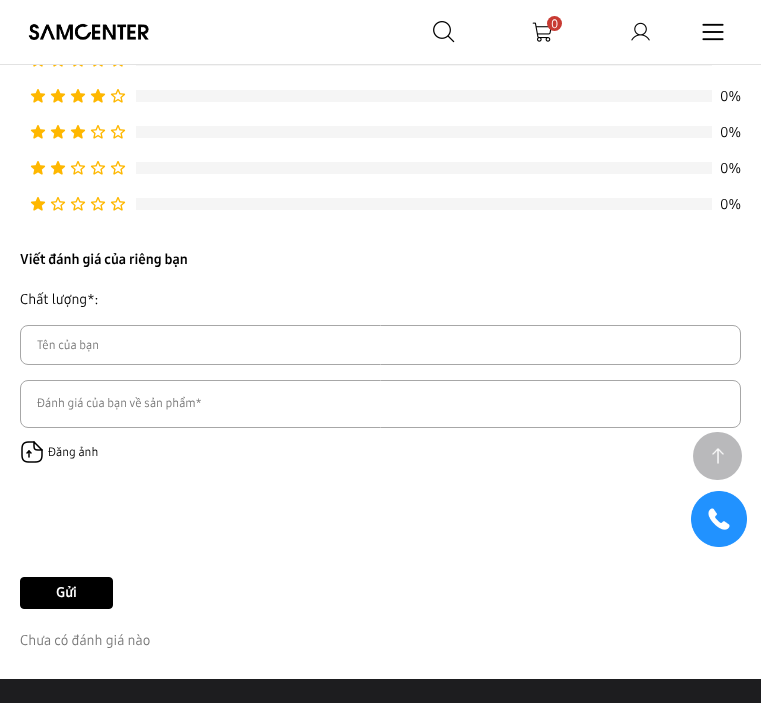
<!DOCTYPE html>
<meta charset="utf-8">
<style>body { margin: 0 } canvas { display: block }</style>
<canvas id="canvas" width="761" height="703"></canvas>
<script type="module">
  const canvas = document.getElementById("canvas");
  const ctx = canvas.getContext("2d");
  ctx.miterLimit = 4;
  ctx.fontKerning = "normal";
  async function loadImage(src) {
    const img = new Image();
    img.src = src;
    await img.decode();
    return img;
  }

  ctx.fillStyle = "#ffffff";
  ctx.fillRect(0, 0, 761, 703);
  ctx.fillStyle = "#e2e2e2";
  ctx.fillRect(0, 64, 761, 1);
  ctx.drawImage(await loadImage("img1.png"), 28, 23, 121, 17);
  ctx.drawImage(await loadImage("img2.png"), 433, 21, 22, 22);
  ctx.drawImage(await loadImage("img3.png"), 532, 22, 20, 20);
  ctx.fillStyle = "#c83a32";
  ctx.beginPath();
  ctx.arc(554.5, 23.5, 7.5, 0, Math.PI * 2);
  ctx.fill();
  ctx.font = "12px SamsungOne";
  ctx.fillStyle = "#ffffff";
  ctx.fillText("0", 551, 28);
  ctx.drawImage(await loadImage("img4.png"), 631, 22, 19, 19);
  ctx.drawImage(await loadImage("img5.png"), 702, 23, 22, 18);
  ctx.drawImage(await loadImage("img6.png"), 33, 65, 10, 2);
  ctx.drawImage(await loadImage("img6.png"), 53, 65, 10, 2);
  ctx.drawImage(await loadImage("img6.png"), 73, 65, 10, 2);
  ctx.drawImage(await loadImage("img6.png"), 93, 65, 10, 2);
  ctx.drawImage(await loadImage("img6.png"), 113, 65, 10, 2);
  ctx.fillStyle = "#f5f5f5";
  ctx.fillRect(136, 65, 576, 1);
  ctx.drawImage(await loadImage("img7.png"), 30, 89, 16, 14);
  ctx.drawImage(await loadImage("img7.png"), 50, 89, 16, 14);
  ctx.drawImage(await loadImage("img7.png"), 70, 89, 16, 14);
  ctx.drawImage(await loadImage("img7.png"), 90, 89, 16, 14);
  ctx.drawImage(await loadImage("img8.png"), 110, 89, 16, 14);
  ctx.fillRect(136, 90, 576, 12);
  ctx.font = "14px SamsungOne";
  ctx.fillStyle = "#000000";
  ctx.fillText("0%", 720, 101);
  ctx.drawImage(await loadImage("img7.png"), 30, 125, 16, 14);
  ctx.drawImage(await loadImage("img7.png"), 50, 125, 16, 14);
  ctx.drawImage(await loadImage("img7.png"), 70, 125, 16, 14);
  ctx.drawImage(await loadImage("img8.png"), 90, 125, 16, 14);
  ctx.drawImage(await loadImage("img8.png"), 110, 125, 16, 14);
  ctx.fillStyle = "#f5f5f5";
  ctx.fillRect(136, 126, 576, 12);
  ctx.fillStyle = "#000000";
  ctx.fillText("0%", 720, 137);
  ctx.drawImage(await loadImage("img7.png"), 30, 161, 16, 14);
  ctx.drawImage(await loadImage("img7.png"), 50, 161, 16, 14);
  ctx.drawImage(await loadImage("img8.png"), 70, 161, 16, 14);
  ctx.drawImage(await loadImage("img8.png"), 90, 161, 16, 14);
  ctx.drawImage(await loadImage("img8.png"), 110, 161, 16, 14);
  ctx.fillStyle = "#f5f5f5";
  ctx.fillRect(136, 162, 576, 12);
  ctx.fillStyle = "#000000";
  ctx.fillText("0%", 720, 173);
  ctx.drawImage(await loadImage("img7.png"), 30, 197, 16, 14);
  ctx.drawImage(await loadImage("img8.png"), 50, 197, 16, 14);
  ctx.drawImage(await loadImage("img8.png"), 70, 197, 16, 14);
  ctx.drawImage(await loadImage("img8.png"), 90, 197, 16, 14);
  ctx.drawImage(await loadImage("img8.png"), 110, 197, 16, 14);
  ctx.fillStyle = "#f5f5f5";
  ctx.fillRect(136, 198, 576, 12);
  ctx.fillStyle = "#000000";
  ctx.fillText("0%", 720, 209);
  ctx.font = "bold 14px SamsungOne";
  ctx.fillText("Viết đánh giá của riêng bạn", 20, 264);
  ctx.font = "14px SamsungOne";
  ctx.fillText("Chất lượng*:", 20, 304);
  ctx.beginPath();
  ctx.roundRect(20.5, 325.5, 720, 39, 7.5);
  ctx.strokeStyle = "#a7a7a7";
  ctx.stroke();
  ctx.font = "12px SamsungOne";
  ctx.fillStyle = "#777777";
  ctx.fillText("Tên của bạn", 37, 349);
  ctx.beginPath();
  ctx.roundRect(20.5, 380.5, 720, 47, 7.5);
  ctx.stroke();
  ctx.fillText("Đánh giá của bạn về sản phẩm*", 37, 407);
  ctx.drawImage(await loadImage("img9.png"), 21, 441, 22, 22);
  ctx.fillStyle = "#000000";
  ctx.fillText("Đăng ảnh", 48, 456);
  ctx.beginPath();
  ctx.roundRect(20.5, 577.5, 92, 31, 3.5);
  ctx.fill();
  ctx.strokeStyle = "#000000";
  ctx.stroke();
  ctx.font = "bold 14px SamsungOne";
  ctx.fillStyle = "#ffffff";
  ctx.fillText("Gửi", 56, 597);
  ctx.font = "14px SamsungOne";
  ctx.fillStyle = "#777777";
  ctx.fillText("Chưa có đánh giá nào", 20, 645);
  ctx.fillStyle = "#b9b9bb";
  ctx.beginPath();
  ctx.roundRect(693, 432, 49, 48, 24);
  ctx.fill();
  ctx.drawImage(await loadImage("img10.png"), 712, 448, 12, 16);
  ctx.drawImage(await loadImage("img11.png"), 691, 491, 56, 56);
  ctx.fillStyle = "#1d1d1f";
  ctx.fillRect(0, 679, 761, 24);
</script>
